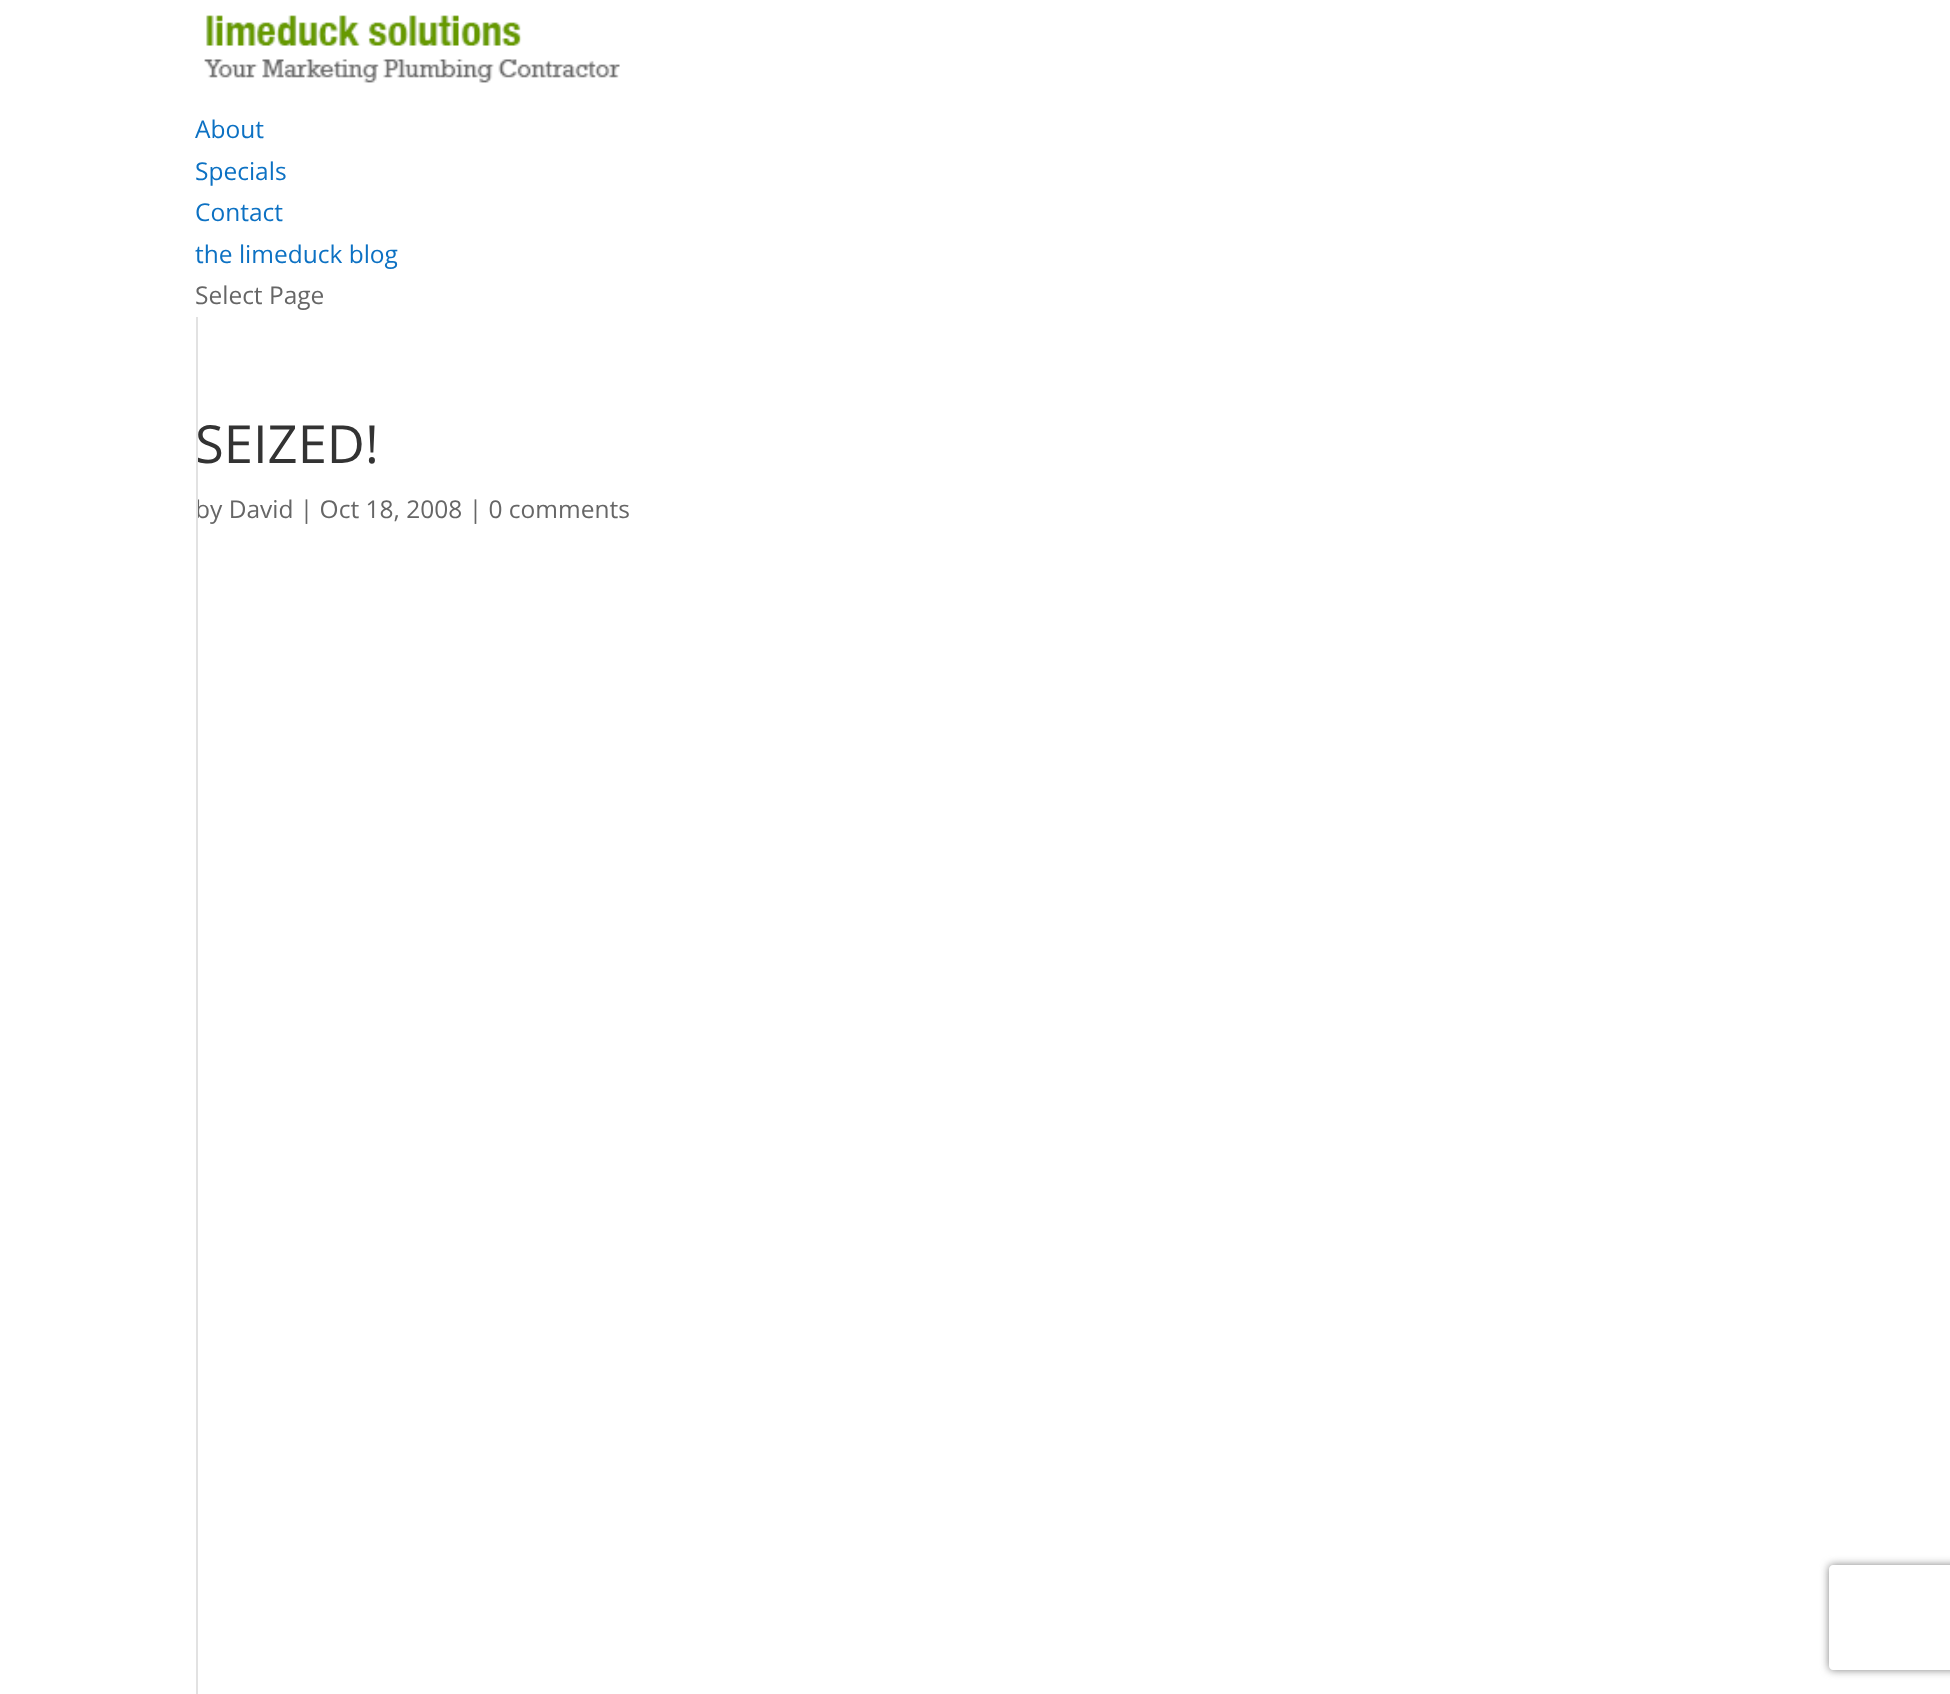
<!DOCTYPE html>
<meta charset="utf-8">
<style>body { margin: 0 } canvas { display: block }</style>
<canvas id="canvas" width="1950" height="1694"></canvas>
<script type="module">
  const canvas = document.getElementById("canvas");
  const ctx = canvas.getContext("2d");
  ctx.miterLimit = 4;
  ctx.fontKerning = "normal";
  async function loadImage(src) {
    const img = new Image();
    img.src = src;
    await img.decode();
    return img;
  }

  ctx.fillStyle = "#ffffff";
  ctx.fillRect(0, 0, 1950, 1694);
  ctx.drawImage(await loadImage("img1.png"), 204, 15, 416, 68);
  ctx.font = "24.5px Open Sans";
  ctx.fillStyle = "#0c71c3";
  ctx.fillText("About", 195, 138);
  ctx.fillText("Specials", 195, 180);
  ctx.fillText("Contact", 195, 221);
  ctx.fillText("the limeduck blog", 195, 263);
  ctx.fillStyle = "#666666";
  ctx.fillText("Select Page", 195, 304);
  ctx.font = "52.5px Open Sans";
  ctx.fillStyle = "#333333";
  ctx.fillText("SEIZED!", 195, 463);
  ctx.font = "24.5px Open Sans";
  ctx.fillStyle = "#666666";
  ctx.fillText("by David | Oct 18, 2008 | 0 comments", 195, 518);
  ctx.fillStyle = "#e2e2e2";
  ctx.fillRect(196, 317, 2, 1377);
  ctx.save();
  ctx.beginPath();
  ctx.moveTo(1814, 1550);
  ctx.lineTo(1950, 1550);
  ctx.lineTo(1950, 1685);
  ctx.lineTo(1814, 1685);
  ctx.closePath();
  ctx.moveTo(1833, 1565);
  ctx.lineTo(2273, 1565);
  ctx.bezierCurveTo(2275, 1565, 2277, 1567, 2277, 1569);
  ctx.lineTo(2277, 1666);
  ctx.bezierCurveTo(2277, 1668, 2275, 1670, 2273, 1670);
  ctx.lineTo(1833, 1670);
  ctx.bezierCurveTo(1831, 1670, 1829, 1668, 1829, 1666);
  ctx.lineTo(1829, 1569);
  ctx.bezierCurveTo(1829, 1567, 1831, 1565, 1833, 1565);
  ctx.closePath();
  ctx.clip("evenodd");
  ctx.fillStyle = "#808080";
  ctx.filter = "blur(4.5px)";
  ctx.beginPath();
  ctx.roundRect(1829, 1565, 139, 105, 4);
  ctx.fill();
  ctx.filter = "none";
  ctx.restore();
</script>
